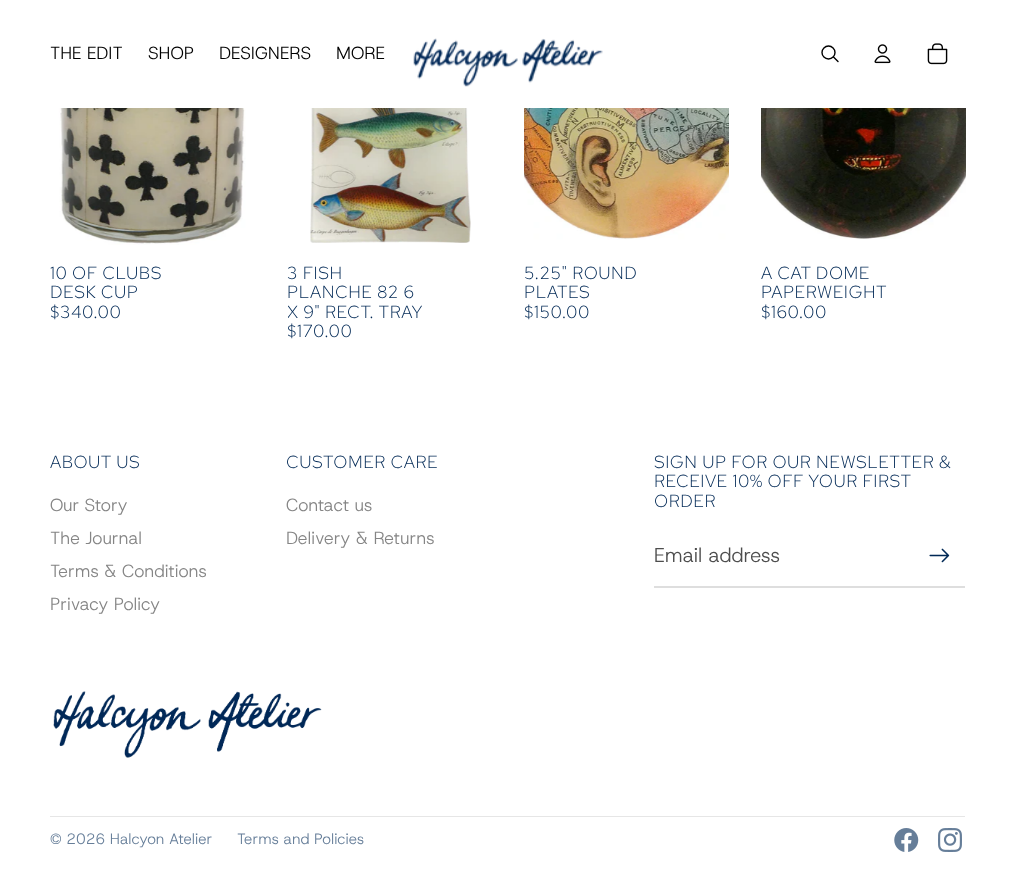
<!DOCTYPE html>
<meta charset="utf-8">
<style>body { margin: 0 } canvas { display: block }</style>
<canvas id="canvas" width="1014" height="875"></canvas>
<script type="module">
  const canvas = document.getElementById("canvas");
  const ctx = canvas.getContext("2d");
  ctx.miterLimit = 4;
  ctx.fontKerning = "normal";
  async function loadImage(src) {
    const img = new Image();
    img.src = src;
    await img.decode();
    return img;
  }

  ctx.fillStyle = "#ffffff";
  ctx.fillRect(0, 0, 1014, 875);
  ctx.font = "300 17.5px Host Grotesk";
  ctx.fillStyle = "#000000";
  ctx.fillText("THE EDIT", 50, 59);
  ctx.fillText("SHOP", 148, 59);
  ctx.fillText("DESIGNERS", 219, 59);
  ctx.fillText("MORE", 336, 59);
  ctx.drawImage(await loadImage("img1.png"), 413, 38, 190, 49);
  ctx.beginPath();
  ctx.arc(828.5, 52.5, 6.5, 0, Math.PI * 2);
  ctx.strokeStyle = "#000000";
  ctx.lineWidth = 1.4;
  ctx.stroke();
  ctx.beginPath();
  ctx.moveTo(833.5, 57);
  ctx.lineTo(838, 61.5);
  ctx.lineCap = "round";
  ctx.lineJoin = "round";
  ctx.stroke();
  ctx.drawImage(await loadImage("img2.png"), 874, 44, 17, 20);
  ctx.drawImage(await loadImage("img3.png"), 927, 43, 21, 22);
  ctx.drawImage(await loadImage("img4.png"), 58, 108, 188, 137);
  ctx.letterSpacing = "0.5px";
  ctx.font = "300 17.5px Red Hat Text";
  ctx.fillStyle = "#002855";
  ctx.fillText("10 OF CLUBS", 50, 279);
  ctx.fillText("DESK CUP", 50, 298);
  ctx.fillText("$340.00", 50, 318);
  ctx.drawImage(await loadImage("img5.png"), 310, 108, 161, 135);
  ctx.fillText("3 FISH", 287, 279);
  ctx.fillText("PLANCHE 82 6", 287, 298);
  ctx.save();
  ctx.beginPath();
  ctx.rect(288, 0, 203, 341);
  ctx.clip();
  ctx.fillText("X 9\" RECT. TRAY", 287, 318);
  ctx.restore();
  ctx.fillText("$170.00", 287, 337);
  ctx.drawImage(await loadImage("img6.png"), 524, 108, 205, 132);
  ctx.fillText("5.25\" ROUND", 524, 279);
  ctx.fillText("PLATES", 524, 298);
  ctx.fillText("$150.00", 524, 318);
  ctx.drawImage(await loadImage("img7.png"), 761, 108, 205, 131);
  ctx.fillText("A CAT DOME", 761, 279);
  ctx.fillText("PAPERWEIGHT", 761, 298);
  ctx.fillText("$160.00", 761, 318);
  ctx.fillText("ABOUT US", 50, 468);
  ctx.letterSpacing = "0px";
  ctx.font = "300 17.5px Host Grotesk";
  ctx.fillStyle = "#858585";
  ctx.fillText("Our Story", 50, 511);
  ctx.fillText("The Journal", 50, 544);
  ctx.fillText("Terms & Conditions", 50, 577);
  ctx.fillText("Privacy Policy", 50, 610);
  ctx.letterSpacing = "0.5px";
  ctx.font = "300 17.5px Red Hat Text";
  ctx.fillStyle = "#002855";
  ctx.fillText("CUSTOMER CARE", 286, 468);
  ctx.letterSpacing = "0px";
  ctx.font = "300 17.5px Host Grotesk";
  ctx.fillStyle = "#858585";
  ctx.fillText("Contact us", 286, 511);
  ctx.fillText("Delivery & Returns", 286, 544);
  ctx.letterSpacing = "0.5px";
  ctx.font = "300 17.5px Red Hat Text";
  ctx.fillStyle = "#002855";
  ctx.fillText("SIGN UP FOR OUR NEWSLETTER &", 654, 468);
  ctx.fillText("RECEIVE 10% OFF YOUR FIRST", 654, 487);
  ctx.fillText("ORDER", 654, 507);
  ctx.fillStyle = "#dedede";
  ctx.fillRect(654, 586, 311, 2);
  ctx.letterSpacing = "0px";
  ctx.font = "300 20px Host Grotesk";
  ctx.fillStyle = "#4d4d4d";
  ctx.fillText("Email address", 654, 562);
  ctx.drawImage(await loadImage("img8.png"), 929, 548, 21, 15);
  ctx.drawImage(await loadImage("img9.png"), 53, 691, 269, 67);
  ctx.fillStyle = "#e6e6e6";
  ctx.fillRect(50, 816, 915, 1);
  ctx.font = "300 15px Host Grotesk";
  ctx.fillStyle = "#667e99";
  ctx.fillText("© 2026 Halcyon Atelier", 50, 844);
  ctx.fillText("Terms and Policies", 237, 844);
  ctx.drawImage(await loadImage("img10.png"), 894, 828, 25, 24);
  ctx.drawImage(await loadImage("img11.png"), 938, 828, 24, 24);
</script>
